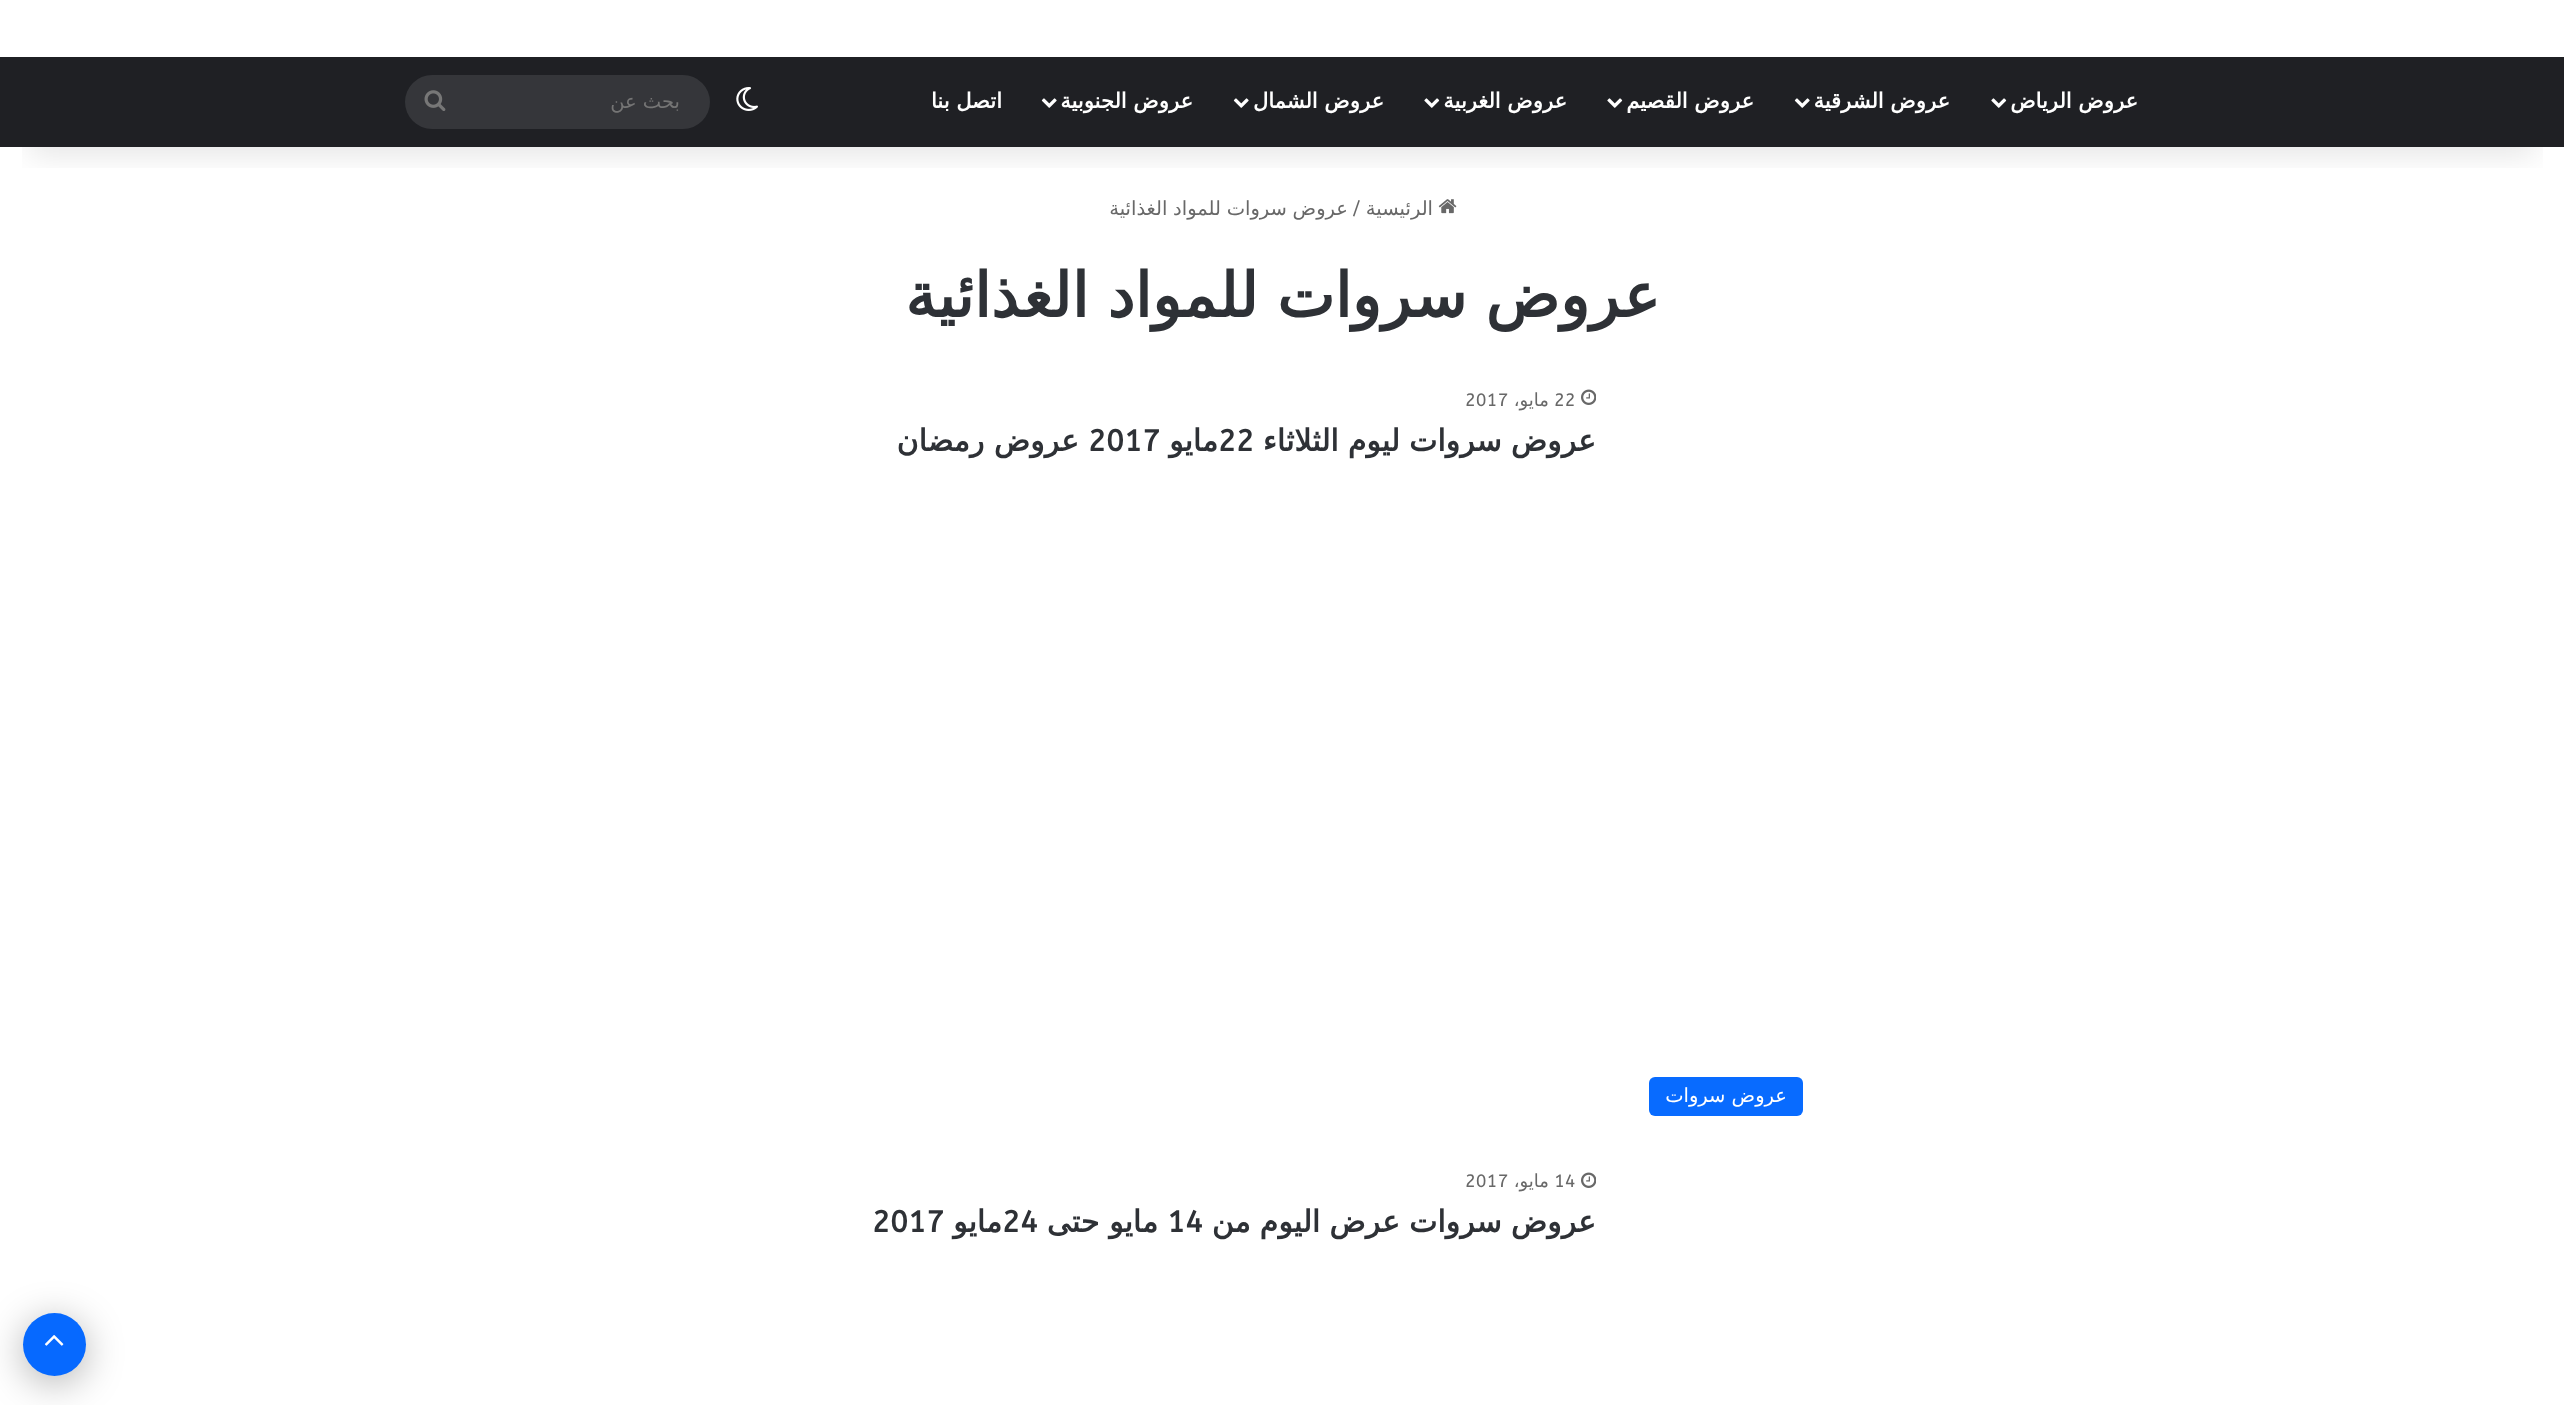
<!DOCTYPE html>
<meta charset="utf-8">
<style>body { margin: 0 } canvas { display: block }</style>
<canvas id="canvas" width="2564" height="1405"></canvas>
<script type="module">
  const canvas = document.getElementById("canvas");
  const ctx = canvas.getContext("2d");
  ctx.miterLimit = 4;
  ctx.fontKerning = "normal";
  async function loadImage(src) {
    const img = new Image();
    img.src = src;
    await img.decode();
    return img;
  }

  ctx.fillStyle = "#ffffff";
  ctx.fillRect(0, 0, 2564, 1405);
  ctx.drawImage(await loadImage("img5.png"), 1438, 199, 19, 15);
  ctx.save();
  ctx.beginPath();
  ctx.rect(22, 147, 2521, 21);
  ctx.clip();
  ctx.fillStyle = "rgba(0, 0, 0, 0.1)";
  ctx.filter = "blur(15px)";
  ctx.beginPath();
  ctx.rect(30, -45, 2505, 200);
  ctx.fill();
  ctx.filter = "none";
  ctx.restore();
  ctx.fillStyle = "#1f2024";
  ctx.fillRect(0, 57, 2564, 90);
  ctx.direction = "rtl";
  ctx.font = "bold 21px DejaVu Sans";
  ctx.fillStyle = "#ffffff";
  ctx.fillText("عروض الرياض", 2138, 108);
  ctx.drawImage(await loadImage("img1.png"), 1991, 98, 16, 10);
  ctx.fillText("عروض الشرقية", 1950, 108);
  ctx.drawImage(await loadImage("img2.png"), 1794, 98, 16, 10);
  ctx.fillText("عروض القصيم", 1754, 108);
  ctx.drawImage(await loadImage("img1.png"), 1607, 98, 16, 10);
  ctx.fillText("عروض الغربية", 1567, 108);
  ctx.drawImage(await loadImage("img1.png"), 1424, 98, 16, 10);
  ctx.fillText("عروض الشمال", 1384, 108);
  ctx.drawImage(await loadImage("img2.png"), 1233, 98, 16, 10);
  ctx.fillText("عروض الجنوبية", 1193, 108);
  ctx.drawImage(await loadImage("img2.png"), 1041, 98, 16, 10);
  ctx.fillText("اتصل بنا", 1002, 108);
  ctx.drawImage(await loadImage("img3.png"), 736, 87, 22, 24);
  ctx.fillStyle = "#35363a";
  ctx.beginPath();
  ctx.roundRect(405, 75, 305, 54, 27);
  ctx.fill();
  ctx.font = "19.5px DejaVu Sans";
  ctx.fillStyle = "#757575";
  ctx.fillText("بحث عن", 680, 108);
  ctx.drawImage(await loadImage("img4.png"), 424, 90, 22, 21);
  ctx.fillStyle = "#686868";
  ctx.fillText("الرئيسية", 1433, 215);
  ctx.direction = "ltr";
  ctx.font = "19.5px ABeeZee";
  ctx.fillText("/", 1352, 215);
  ctx.wordSpacing = "-0.5px";
  ctx.direction = "rtl";
  ctx.font = "19.5px DejaVu Sans";
  ctx.fillText("عروض سروات للمواد الغذائية", 1348, 215);
  ctx.wordSpacing = "-1px";
  ctx.font = "bold 61.5px DejaVu Sans";
  ctx.fillStyle = "#2e3136";
  ctx.fillText("عروض سروات للمواد الغذائية", 1660, 317);
  ctx.drawImage(await loadImage("img6.png"), 1581, 389, 15, 16);
  ctx.wordSpacing = "0px";
  ctx.direction = "ltr";
  ctx.font = "18px ABeeZee";
  ctx.fillStyle = "#686868";
  ctx.fillText("22", 1554, 406);
  ctx.direction = "rtl";
  ctx.font = "18px DejaVu Sans";
  ctx.fillText("مايو،", 1549, 406);
  ctx.direction = "ltr";
  ctx.font = "18px ABeeZee";
  ctx.fillText("2017", 1465, 406);
  ctx.wordSpacing = "-0.5px";
  ctx.direction = "rtl";
  ctx.font = "bold 30px DejaVu Sans";
  ctx.fillStyle = "#2e3136";
  ctx.fillText("عروض سروات ليوم الثلاثاء", 1596, 451);
  ctx.wordSpacing = "0px";
  ctx.direction = "ltr";
  ctx.font = "bold 30px ABeeZee";
  ctx.fillText("22", 1218, 451);
  ctx.direction = "rtl";
  ctx.font = "bold 30px DejaVu Sans";
  ctx.fillText("مايو", 1218, 451);
  ctx.direction = "ltr";
  ctx.font = "bold 30px ABeeZee";
  ctx.fillText("2017", 1088, 451);
  ctx.direction = "rtl";
  ctx.font = "bold 30px DejaVu Sans";
  ctx.fillText("عروض رمضان", 1079, 451);
  ctx.fillStyle = "#086bff";
  ctx.beginPath();
  ctx.roundRect(1649, 1077, 154, 39, 6);
  ctx.fill();
  ctx.font = "19.5px DejaVu Sans";
  ctx.fillStyle = "#ffffff";
  ctx.fillText("عروض سروات", 1787, 1102);
  ctx.drawImage(await loadImage("img6.png"), 1581, 1172, 15, 16);
  ctx.direction = "ltr";
  ctx.font = "18px ABeeZee";
  ctx.fillStyle = "#686868";
  ctx.fillText("14", 1554, 1187);
  ctx.direction = "rtl";
  ctx.font = "18px DejaVu Sans";
  ctx.fillText("مايو،", 1549, 1187);
  ctx.direction = "ltr";
  ctx.font = "18px ABeeZee";
  ctx.fillText("2017", 1465, 1187);
  ctx.wordSpacing = "-0.5px";
  ctx.direction = "rtl";
  ctx.font = "bold 30px DejaVu Sans";
  ctx.fillStyle = "#2e3136";
  ctx.fillText("عروض سروات عرض اليوم من", 1596, 1232);
  ctx.wordSpacing = "0px";
  ctx.direction = "ltr";
  ctx.font = "bold 30px ABeeZee";
  ctx.fillText("14", 1167, 1232);
  ctx.direction = "rtl";
  ctx.font = "bold 30px DejaVu Sans";
  ctx.fillText("مايو حتى", 1158, 1232);
  ctx.direction = "ltr";
  ctx.font = "bold 30px ABeeZee";
  ctx.fillText("24", 1002, 1232);
  ctx.direction = "rtl";
  ctx.font = "bold 30px DejaVu Sans";
  ctx.fillText("مايو", 1002, 1232);
  ctx.direction = "ltr";
  ctx.font = "bold 30px ABeeZee";
  ctx.fillText("2017", 872, 1232);
  ctx.fillStyle = "rgba(0, 0, 0, 0.3)";
  ctx.filter = "blur(19px)";
  ctx.beginPath();
  ctx.roundRect(23, 1320, 63, 63, 31.5);
  ctx.fill();
  ctx.filter = "none";
  ctx.fillStyle = "#0669ff";
  ctx.beginPath();
  ctx.arc(54.5, 1344.5, 31.5, 0, Math.PI * 2);
  ctx.fill();
  ctx.drawImage(await loadImage("img7.png"), 44, 1335, 20, 11);
</script>
